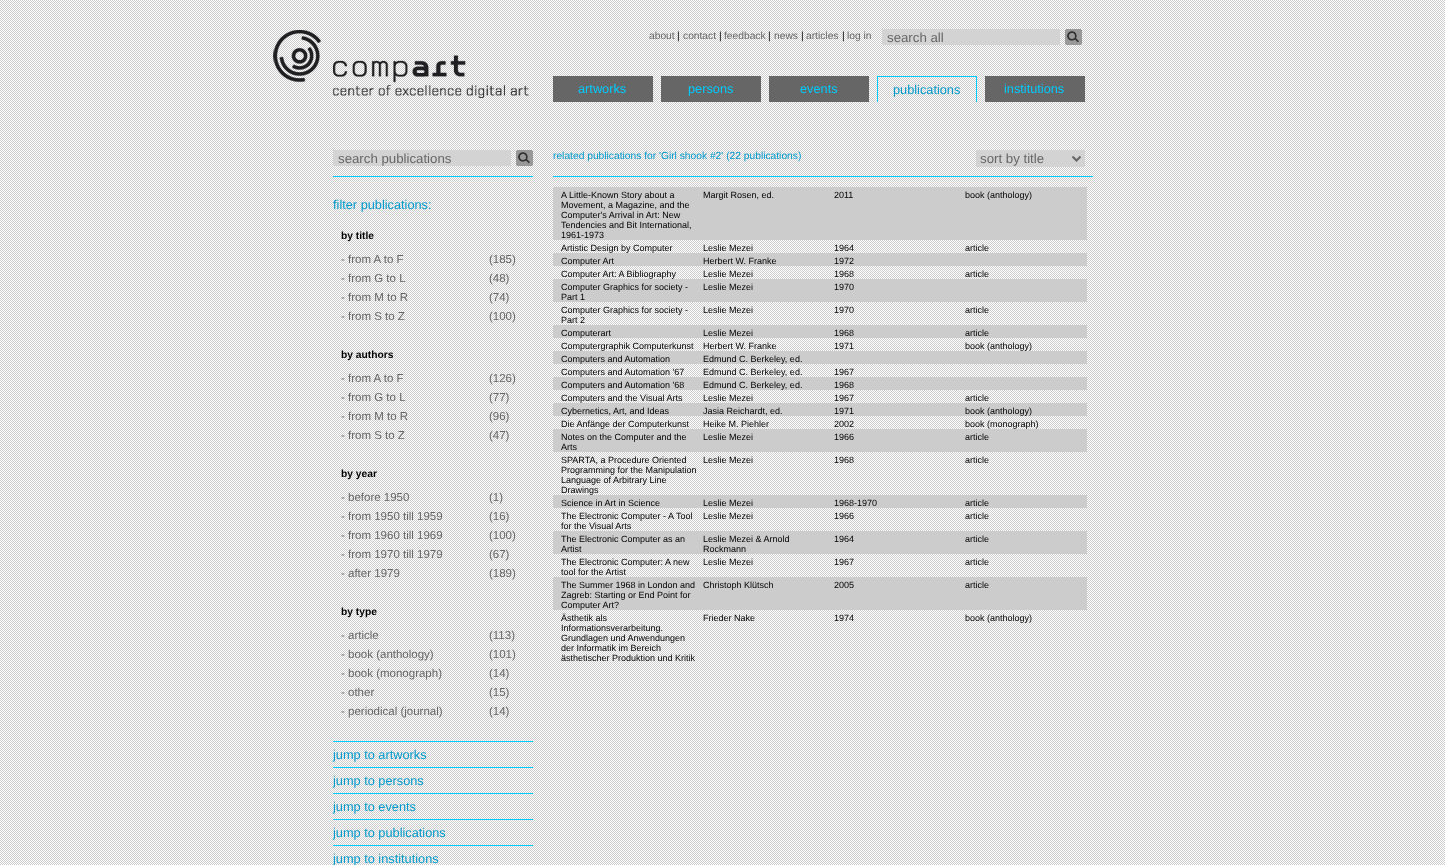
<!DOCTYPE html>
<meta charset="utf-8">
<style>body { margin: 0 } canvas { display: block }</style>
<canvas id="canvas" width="1445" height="865"></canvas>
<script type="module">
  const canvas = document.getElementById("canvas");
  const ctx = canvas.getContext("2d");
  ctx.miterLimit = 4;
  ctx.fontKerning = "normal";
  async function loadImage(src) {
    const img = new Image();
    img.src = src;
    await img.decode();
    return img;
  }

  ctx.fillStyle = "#ffffff";
  ctx.fillRect(0, 0, 1445, 865);
  ctx.drawImage(await loadImage("img1.png"), 0, 0, 1445, 865);
  ctx.drawImage(await loadImage("img2.png"), 273, 30, 256, 68);
  ctx.font = "10.25px Liberation Sans";
  ctx.fillStyle = "#666666";
  ctx.fillText("about", 649, 39);
  ctx.fillStyle = "#000000";
  ctx.fillText("|", 677, 39);
  ctx.fillStyle = "#666666";
  ctx.fillText("contact", 683, 39);
  ctx.fillStyle = "#000000";
  ctx.fillText("|", 719, 39);
  ctx.fillStyle = "#666666";
  ctx.fillText("feedback", 724, 39);
  ctx.fillStyle = "#000000";
  ctx.fillText("|", 768, 39);
  ctx.fillStyle = "#666666";
  ctx.fillText("news", 774, 39);
  ctx.fillStyle = "#000000";
  ctx.fillText("|", 801, 39);
  ctx.fillStyle = "#666666";
  ctx.fillText("articles", 806, 39);
  ctx.fillStyle = "#000000";
  ctx.fillText("|", 842, 39);
  ctx.fillStyle = "#666666";
  ctx.fillText("log in", 847, 39);
  ctx.fillStyle = "#d3d3d3";
  ctx.fillRect(882, 29, 178, 16);
  ctx.font = "13.25px Liberation Sans";
  ctx.fillStyle = "#666666";
  ctx.fillText("search all", 887, 42);
  ctx.fillStyle = "#d3d3d3";
  ctx.fillRect(1065, 29, 17, 16);
  ctx.drawImage(await loadImage("img3.png"), 1065, 29, 17, 16);
  ctx.fillStyle = "#666666";
  ctx.fillRect(553, 76, 100, 26);
  ctx.font = "12.75px Liberation Sans";
  ctx.fillStyle = "#00ccff";
  ctx.fillText("artworks", 578, 93);
  ctx.fillStyle = "#666666";
  ctx.fillRect(661, 76, 100, 26);
  ctx.fillStyle = "#00ccff";
  ctx.fillText("persons", 688, 93);
  ctx.fillStyle = "#666666";
  ctx.fillRect(769, 76, 100, 26);
  ctx.fillStyle = "#00ccff";
  ctx.fillText("events", 800, 93);
  ctx.fillRect(877, 76, 100, 1);
  ctx.fillRect(976, 76, 1, 26);
  ctx.fillRect(877, 76, 1, 26);
  ctx.fillStyle = "#0099cc";
  ctx.fillText("publications", 893, 94);
  ctx.fillStyle = "#666666";
  ctx.fillRect(985, 76, 100, 26);
  ctx.fillStyle = "#00ccff";
  ctx.fillText("institutions", 1004, 93);
  ctx.fillStyle = "#d3d3d3";
  ctx.fillRect(333, 150, 178, 16);
  ctx.font = "13.25px Liberation Sans";
  ctx.fillStyle = "#666666";
  ctx.fillText("search publications", 338, 163);
  ctx.fillStyle = "#d3d3d3";
  ctx.fillRect(516, 150, 17, 16);
  ctx.drawImage(await loadImage("img3.png"), 516, 150, 17, 16);
  ctx.font = "10.25px Liberation Sans";
  ctx.fillStyle = "#0099cc";
  ctx.fillText("related publications for 'Girl shook #2' (22 publications)", 553, 159);
  ctx.fillStyle = "#d3d3d3";
  ctx.fillRect(976, 150, 109, 17);
  ctx.beginPath();
  ctx.moveTo(1072.5, 156.5);
  ctx.lineTo(1076.5, 160.5);
  ctx.lineTo(1080.5, 156.5);
  ctx.strokeStyle = "#666666";
  ctx.lineWidth = 2;
  ctx.stroke();
  ctx.font = "13.25px Liberation Sans";
  ctx.fillStyle = "#666666";
  ctx.fillText("sort by title", 980, 163);
  ctx.fillStyle = "#00ccff";
  ctx.fillRect(333, 176, 200, 1);
  ctx.font = "12.75px Liberation Sans";
  ctx.fillStyle = "#0099cc";
  ctx.fillText("filter publications:", 333, 209);
  ctx.font = "bold 10.25px Liberation Sans";
  ctx.fillStyle = "#000000";
  ctx.fillText("by title", 341, 239);
  ctx.font = "11.5px Liberation Sans";
  ctx.fillStyle = "#666666";
  ctx.fillText("- from A to F", 341, 263);
  ctx.fillText("(185)", 489, 263);
  ctx.fillText("- from G to L", 341, 282);
  ctx.fillText("(48)", 489, 282);
  ctx.fillText("- from M to R", 341, 301);
  ctx.fillText("(74)", 489, 301);
  ctx.fillText("- from S to Z", 341, 320);
  ctx.fillText("(100)", 489, 320);
  ctx.font = "bold 10.25px Liberation Sans";
  ctx.fillStyle = "#000000";
  ctx.fillText("by authors", 341, 358);
  ctx.font = "11.5px Liberation Sans";
  ctx.fillStyle = "#666666";
  ctx.fillText("- from A to F", 341, 382);
  ctx.fillText("(126)", 489, 382);
  ctx.fillText("- from G to L", 341, 401);
  ctx.fillText("(77)", 489, 401);
  ctx.fillText("- from M to R", 341, 420);
  ctx.fillText("(96)", 489, 420);
  ctx.fillText("- from S to Z", 341, 439);
  ctx.fillText("(47)", 489, 439);
  ctx.font = "bold 10.25px Liberation Sans";
  ctx.fillStyle = "#000000";
  ctx.fillText("by year", 341, 477);
  ctx.font = "11.5px Liberation Sans";
  ctx.fillStyle = "#666666";
  ctx.fillText("- before 1950", 341, 501);
  ctx.fillText("(1)", 489, 501);
  ctx.fillText("- from 1950 till 1959", 341, 520);
  ctx.fillText("(16)", 489, 520);
  ctx.fillText("- from 1960 till 1969", 341, 539);
  ctx.fillText("(100)", 489, 539);
  ctx.fillText("- from 1970 till 1979", 341, 558);
  ctx.fillText("(67)", 489, 558);
  ctx.fillText("- after 1979", 341, 577);
  ctx.fillText("(189)", 489, 577);
  ctx.font = "bold 10.25px Liberation Sans";
  ctx.fillStyle = "#000000";
  ctx.fillText("by type", 341, 615);
  ctx.font = "11.5px Liberation Sans";
  ctx.fillStyle = "#666666";
  ctx.fillText("- article", 341, 639);
  ctx.fillText("(113)", 489, 639);
  ctx.fillText("- book (anthology)", 341, 658);
  ctx.fillText("(101)", 489, 658);
  ctx.fillText("- book (monograph)", 341, 677);
  ctx.fillText("(14)", 489, 677);
  ctx.fillText("- other", 341, 696);
  ctx.fillText("(15)", 489, 696);
  ctx.fillText("- periodical (journal)", 341, 715);
  ctx.fillText("(14)", 489, 715);
  ctx.fillStyle = "#00ccff";
  ctx.fillRect(333, 741, 200, 1);
  ctx.font = "12.75px Liberation Sans";
  ctx.fillStyle = "#0099cc";
  ctx.fillText("jump to artworks", 333, 759);
  ctx.fillStyle = "#00ccff";
  ctx.fillRect(333, 767, 200, 1);
  ctx.fillStyle = "#0099cc";
  ctx.fillText("jump to persons", 333, 785);
  ctx.fillStyle = "#00ccff";
  ctx.fillRect(333, 793, 200, 1);
  ctx.fillStyle = "#0099cc";
  ctx.fillText("jump to events", 333, 811);
  ctx.fillStyle = "#00ccff";
  ctx.fillRect(333, 819, 200, 1);
  ctx.fillStyle = "#0099cc";
  ctx.fillText("jump to publications", 333, 837);
  ctx.fillStyle = "#00ccff";
  ctx.fillRect(333, 845, 200, 1);
  ctx.fillStyle = "#0099cc";
  ctx.fillText("jump to institutions", 333, 863);
  ctx.fillStyle = "#00ccff";
  ctx.fillRect(553, 176, 540, 1);
  ctx.fillStyle = "#cccccc";
  ctx.fillRect(553, 187, 534, 53);
  ctx.font = "9px Liberation Sans";
  ctx.fillStyle = "#000000";
  ctx.fillText("A Little-Known Story about a", 561, 198);
  ctx.fillText("Movement, a Magazine, and the", 561, 208);
  ctx.fillText("Computer's Arrival in Art: New", 561, 218);
  ctx.fillText("Tendencies and Bit International,", 561, 228);
  ctx.fillText("1961-1973", 561, 238);
  ctx.fillText("Margit Rosen, ed.", 703, 198);
  ctx.fillText("2011", 834, 198);
  ctx.fillText("book (anthology)", 965, 198);
  ctx.fillText("Artistic Design by Computer", 561, 251);
  ctx.fillText("Leslie Mezei", 703, 251);
  ctx.fillText("1964", 834, 251);
  ctx.fillText("article", 965, 251);
  ctx.fillStyle = "#cccccc";
  ctx.fillRect(553, 253, 534, 13);
  ctx.fillStyle = "#000000";
  ctx.fillText("Computer Art", 561, 264);
  ctx.fillText("Herbert W. Franke", 703, 264);
  ctx.fillText("1972", 834, 264);
  ctx.fillText("Computer Art: A Bibliography", 561, 277);
  ctx.fillText("Leslie Mezei", 703, 277);
  ctx.fillText("1968", 834, 277);
  ctx.fillText("article", 965, 277);
  ctx.fillStyle = "#cccccc";
  ctx.fillRect(553, 279, 534, 23);
  ctx.fillStyle = "#000000";
  ctx.fillText("Computer Graphics for society -", 561, 290);
  ctx.fillText("Part 1", 561, 300);
  ctx.fillText("Leslie Mezei", 703, 290);
  ctx.fillText("1970", 834, 290);
  ctx.fillText("Computer Graphics for society -", 561, 313);
  ctx.fillText("Part 2", 561, 323);
  ctx.fillText("Leslie Mezei", 703, 313);
  ctx.fillText("1970", 834, 313);
  ctx.fillText("article", 965, 313);
  ctx.fillStyle = "#cccccc";
  ctx.fillRect(553, 325, 534, 13);
  ctx.fillStyle = "#000000";
  ctx.fillText("Computerart", 561, 336);
  ctx.fillText("Leslie Mezei", 703, 336);
  ctx.fillText("1968", 834, 336);
  ctx.fillText("article", 965, 336);
  ctx.fillText("Computergraphik Computerkunst", 561, 349);
  ctx.fillText("Herbert W. Franke", 703, 349);
  ctx.fillText("1971", 834, 349);
  ctx.fillText("book (anthology)", 965, 349);
  ctx.fillStyle = "#cccccc";
  ctx.fillRect(553, 351, 534, 13);
  ctx.fillStyle = "#000000";
  ctx.fillText("Computers and Automation", 561, 362);
  ctx.fillText("Edmund C. Berkeley, ed.", 703, 362);
  ctx.fillText("Computers and Automation '67", 561, 375);
  ctx.fillText("Edmund C. Berkeley, ed.", 703, 375);
  ctx.fillText("1967", 834, 375);
  ctx.fillStyle = "#cccccc";
  ctx.fillRect(553, 377, 534, 13);
  ctx.fillStyle = "#000000";
  ctx.fillText("Computers and Automation '68", 561, 388);
  ctx.fillText("Edmund C. Berkeley, ed.", 703, 388);
  ctx.fillText("1968", 834, 388);
  ctx.fillText("Computers and the Visual Arts", 561, 401);
  ctx.fillText("Leslie Mezei", 703, 401);
  ctx.fillText("1967", 834, 401);
  ctx.fillText("article", 965, 401);
  ctx.fillStyle = "#cccccc";
  ctx.fillRect(553, 403, 534, 13);
  ctx.fillStyle = "#000000";
  ctx.fillText("Cybernetics, Art, and Ideas", 561, 414);
  ctx.fillText("Jasia Reichardt, ed.", 703, 414);
  ctx.fillText("1971", 834, 414);
  ctx.fillText("book (anthology)", 965, 414);
  ctx.fillText("Die Anfänge der Computerkunst", 561, 427);
  ctx.fillText("Heike M. Piehler", 703, 427);
  ctx.fillText("2002", 834, 427);
  ctx.fillText("book (monograph)", 965, 427);
  ctx.fillStyle = "#cccccc";
  ctx.fillRect(553, 429, 534, 23);
  ctx.fillStyle = "#000000";
  ctx.fillText("Notes on the Computer and the", 561, 440);
  ctx.fillText("Arts", 561, 450);
  ctx.fillText("Leslie Mezei", 703, 440);
  ctx.fillText("1966", 834, 440);
  ctx.fillText("article", 965, 440);
  ctx.fillText("SPARTA, a Procedure Oriented", 561, 463);
  ctx.fillText("Programming for the Manipulation", 561, 473);
  ctx.fillText("Language of Arbitrary Line", 561, 483);
  ctx.fillText("Drawings", 561, 493);
  ctx.fillText("Leslie Mezei", 703, 463);
  ctx.fillText("1968", 834, 463);
  ctx.fillText("article", 965, 463);
  ctx.fillStyle = "#cccccc";
  ctx.fillRect(553, 495, 534, 13);
  ctx.fillStyle = "#000000";
  ctx.fillText("Science in Art in Science", 561, 506);
  ctx.fillText("Leslie Mezei", 703, 506);
  ctx.fillText("1968-1970", 834, 506);
  ctx.fillText("article", 965, 506);
  ctx.fillText("The Electronic Computer - A Tool", 561, 519);
  ctx.fillText("for the Visual Arts", 561, 529);
  ctx.fillText("Leslie Mezei", 703, 519);
  ctx.fillText("1966", 834, 519);
  ctx.fillText("article", 965, 519);
  ctx.fillStyle = "#cccccc";
  ctx.fillRect(553, 531, 534, 23);
  ctx.fillStyle = "#000000";
  ctx.fillText("The Electronic Computer as an", 561, 542);
  ctx.fillText("Artist", 561, 552);
  ctx.fillText("Leslie Mezei & Arnold", 703, 542);
  ctx.fillText("Rockmann", 703, 552);
  ctx.fillText("1964", 834, 542);
  ctx.fillText("article", 965, 542);
  ctx.fillText("The Electronic Computer: A new", 561, 565);
  ctx.fillText("tool for the Artist", 561, 575);
  ctx.fillText("Leslie Mezei", 703, 565);
  ctx.fillText("1967", 834, 565);
  ctx.fillText("article", 965, 565);
  ctx.fillStyle = "#cccccc";
  ctx.fillRect(553, 577, 534, 33);
  ctx.fillStyle = "#000000";
  ctx.fillText("The Summer 1968 in London and", 561, 588);
  ctx.fillText("Zagreb: Starting or End Point for", 561, 598);
  ctx.fillText("Computer Art?", 561, 608);
  ctx.fillText("Christoph Klütsch", 703, 588);
  ctx.fillText("2005", 834, 588);
  ctx.fillText("article", 965, 588);
  ctx.fillText("Ästhetik als", 561, 621);
  ctx.fillText("Informationsverarbeitung.", 561, 631);
  ctx.fillText("Grundlagen und Anwendungen", 561, 641);
  ctx.fillText("der Informatik im Bereich", 561, 651);
  ctx.fillText("ästhetischer Produktion und Kritik", 561, 661);
  ctx.fillText("Frieder Nake", 703, 621);
  ctx.fillText("1974", 834, 621);
  ctx.fillText("book (anthology)", 965, 621);
</script>
